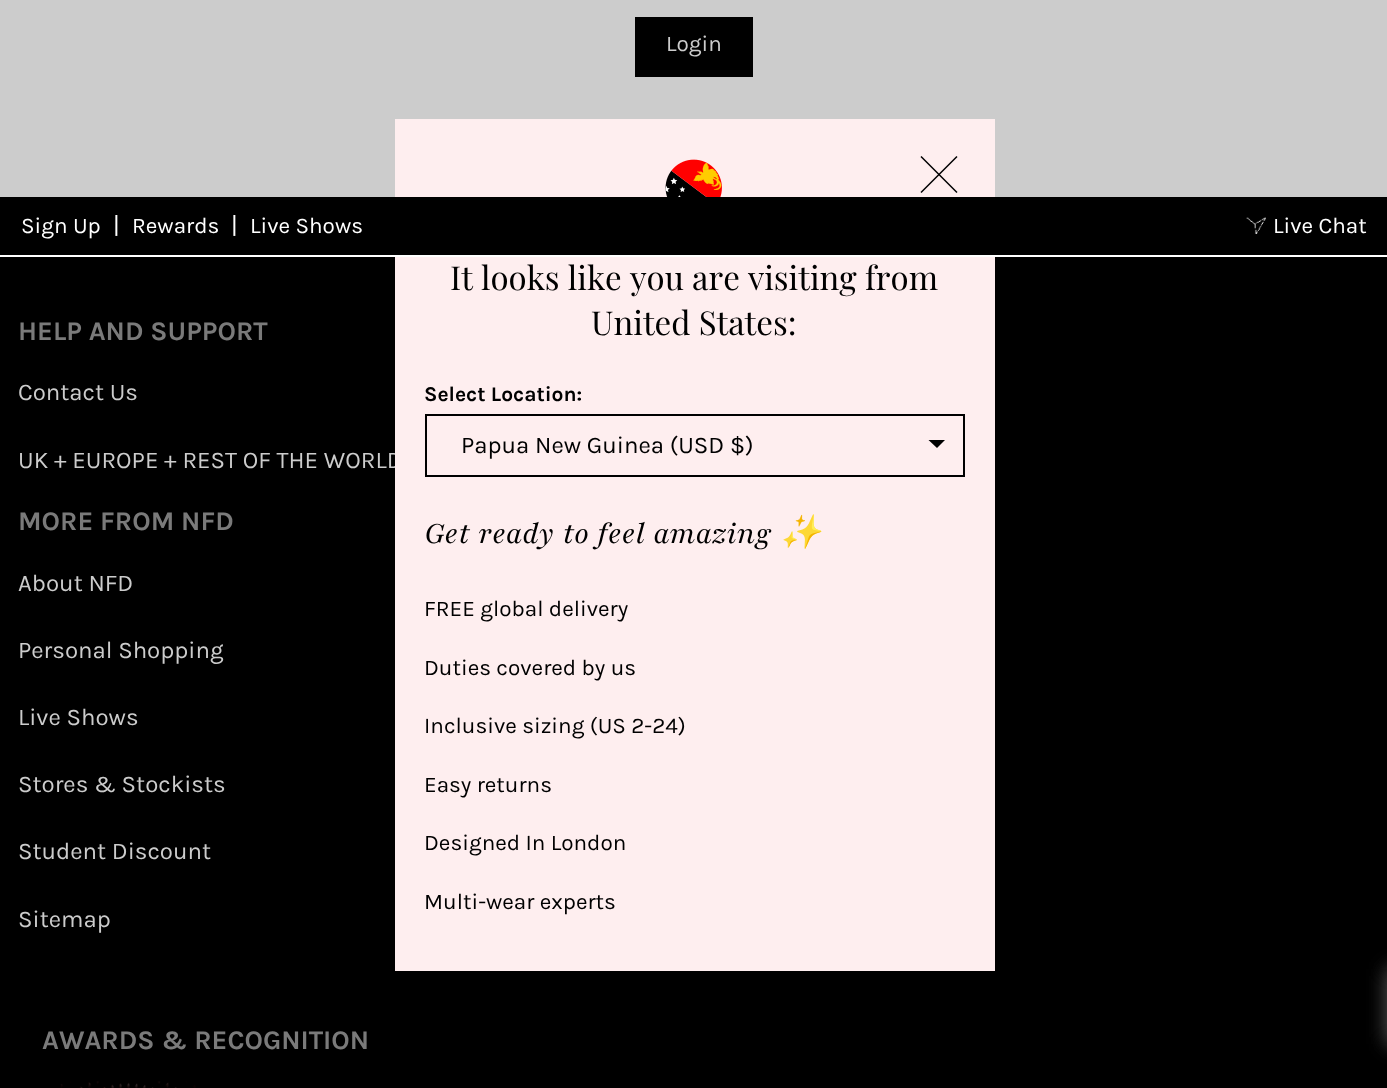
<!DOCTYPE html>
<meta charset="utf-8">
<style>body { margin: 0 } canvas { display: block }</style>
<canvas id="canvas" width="1387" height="1088"></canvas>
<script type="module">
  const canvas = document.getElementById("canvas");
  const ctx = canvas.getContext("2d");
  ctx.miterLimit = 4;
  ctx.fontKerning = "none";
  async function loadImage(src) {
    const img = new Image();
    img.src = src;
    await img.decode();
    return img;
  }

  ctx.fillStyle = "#cccccc";
  ctx.fillRect(0, 0, 1387, 1088);
  ctx.fillStyle = "#000000";
  ctx.fillRect(635, 17, 118, 60);
  ctx.font = "22.5px Karla";
  ctx.fillStyle = "#cccccc";
  ctx.fillText("Login", 666, 51);
  ctx.fillStyle = "#000000";
  ctx.fillRect(0, 257, 1387, 831);
  ctx.font = "24px Karla";
  ctx.fillStyle = "#cccccc";
  ctx.fillText("UK + EUROPE + REST OF THE WORLD", 18, 468);
  ctx.fillStyle = "#feeeef";
  ctx.fillRect(395, 119, 600, 852);
  ctx.fillStyle = "#000000";
  ctx.fillRect(0, 197, 1387, 58);
  ctx.fillStyle = "#ffffff";
  ctx.fillRect(0, 255, 1387, 2);
  ctx.font = "22.5px Karla";
  ctx.fillText("Sign Up", 21, 233);
  ctx.font = "24px Karla";
  ctx.fillText("|", 113, 233);
  ctx.font = "22.5px Karla";
  ctx.fillText("Rewards", 132, 233);
  ctx.font = "24px Karla";
  ctx.fillText("|", 231, 233);
  ctx.font = "22.5px Karla";
  ctx.fillText("Live Shows", 250, 233);
  ctx.drawImage(await loadImage("img1.png"), 1246, 217, 20, 17);
  ctx.fillText("Live Chat", 1273, 233);
  ctx.font = "bold 27px Karla";
  ctx.fillStyle = "#7a7a7a";
  ctx.fillText("HELP AND SUPPORT", 18, 340);
  ctx.font = "24px Karla";
  ctx.fillStyle = "#cccccc";
  ctx.fillText("Contact Us", 18, 400);
  ctx.font = "bold 27px Karla";
  ctx.fillStyle = "#7a7a7a";
  ctx.fillText("MORE FROM NFD", 18, 530);
  ctx.font = "24px Karla";
  ctx.fillStyle = "#cccccc";
  ctx.fillText("About NFD", 18, 591);
  ctx.fillText("Personal Shopping", 18, 658);
  ctx.fillText("Live Shows", 18, 725);
  ctx.fillText("Stores & Stockists", 18, 792);
  ctx.fillText("Student Discount", 18, 859);
  ctx.fillText("Sitemap", 18, 927);
  ctx.font = "bold 27px Karla";
  ctx.fillStyle = "#7a7a7a";
  ctx.fillText("AWARDS & RECOGNITION", 42, 1049);
  ctx.drawImage(await loadImage("img2.png"), 60, 1081, 136, 7);
  ctx.beginPath();
  ctx.moveTo(957, 156.5);
  ctx.lineTo(921, 192.5);
  ctx.moveTo(921, 156.5);
  ctx.lineTo(957, 192.5);
  ctx.strokeStyle = "#000000";
  ctx.lineWidth = 1.5;
  ctx.stroke();
  ctx.drawImage(await loadImage("img3.png"), 665, 159, 57, 38);
  ctx.font = "33px Playfair Display";
  ctx.fillStyle = "#000000";
  ctx.fillText("It looks like you are", 450, 290);
  ctx.fillText("visiting from", 748, 290);
  ctx.fillText("United States:", 591, 335);
  ctx.font = "bold 21px Karla";
  ctx.fillText("Select Location:", 424, 401);
  ctx.beginPath();
  ctx.moveTo(928.5, 440);
  ctx.lineTo(945, 440);
  ctx.lineTo(937, 448);
  ctx.closePath();
  ctx.fill();
  ctx.lineWidth = 2;
  ctx.strokeRect(426, 415, 538, 61);
  ctx.font = "24px Karla";
  ctx.fillText("Papua New Guinea (USD $)", 461, 453);
  ctx.wordSpacing = "1.5px";
  ctx.font = "italic 33px Playfair";
  ctx.fillText("Get ready to feel amazing", 424, 543);
  ctx.wordSpacing = "0px";
  ctx.font = "italic 33px Noto Color Emoji";
  ctx.fillText("✨", 780, 543);
  ctx.font = "22.5px Karla";
  ctx.fillText("FREE global delivery", 424, 616);
  ctx.fillText("Duties covered by us", 424, 675);
  ctx.fillText("Inclusive sizing (US 2-24)", 424, 733);
  ctx.fillText("Easy returns", 424, 792);
  ctx.fillText("Designed In London", 424, 850);
  ctx.fillText("Multi-wear experts", 424, 909);
  ctx.fillStyle = "rgba(117, 117, 117, 0.5)";
  ctx.filter = "blur(10.5px)";
  ctx.beginPath();
  ctx.rect(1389, 969, 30, 75);
  ctx.fill();
  ctx.filter = "none";
  ctx.filter = "blur(10.5px)";
  ctx.beginPath();
  ctx.rect(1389, 969, 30, 75);
  ctx.fill();
  ctx.filter = "none";
</script>
